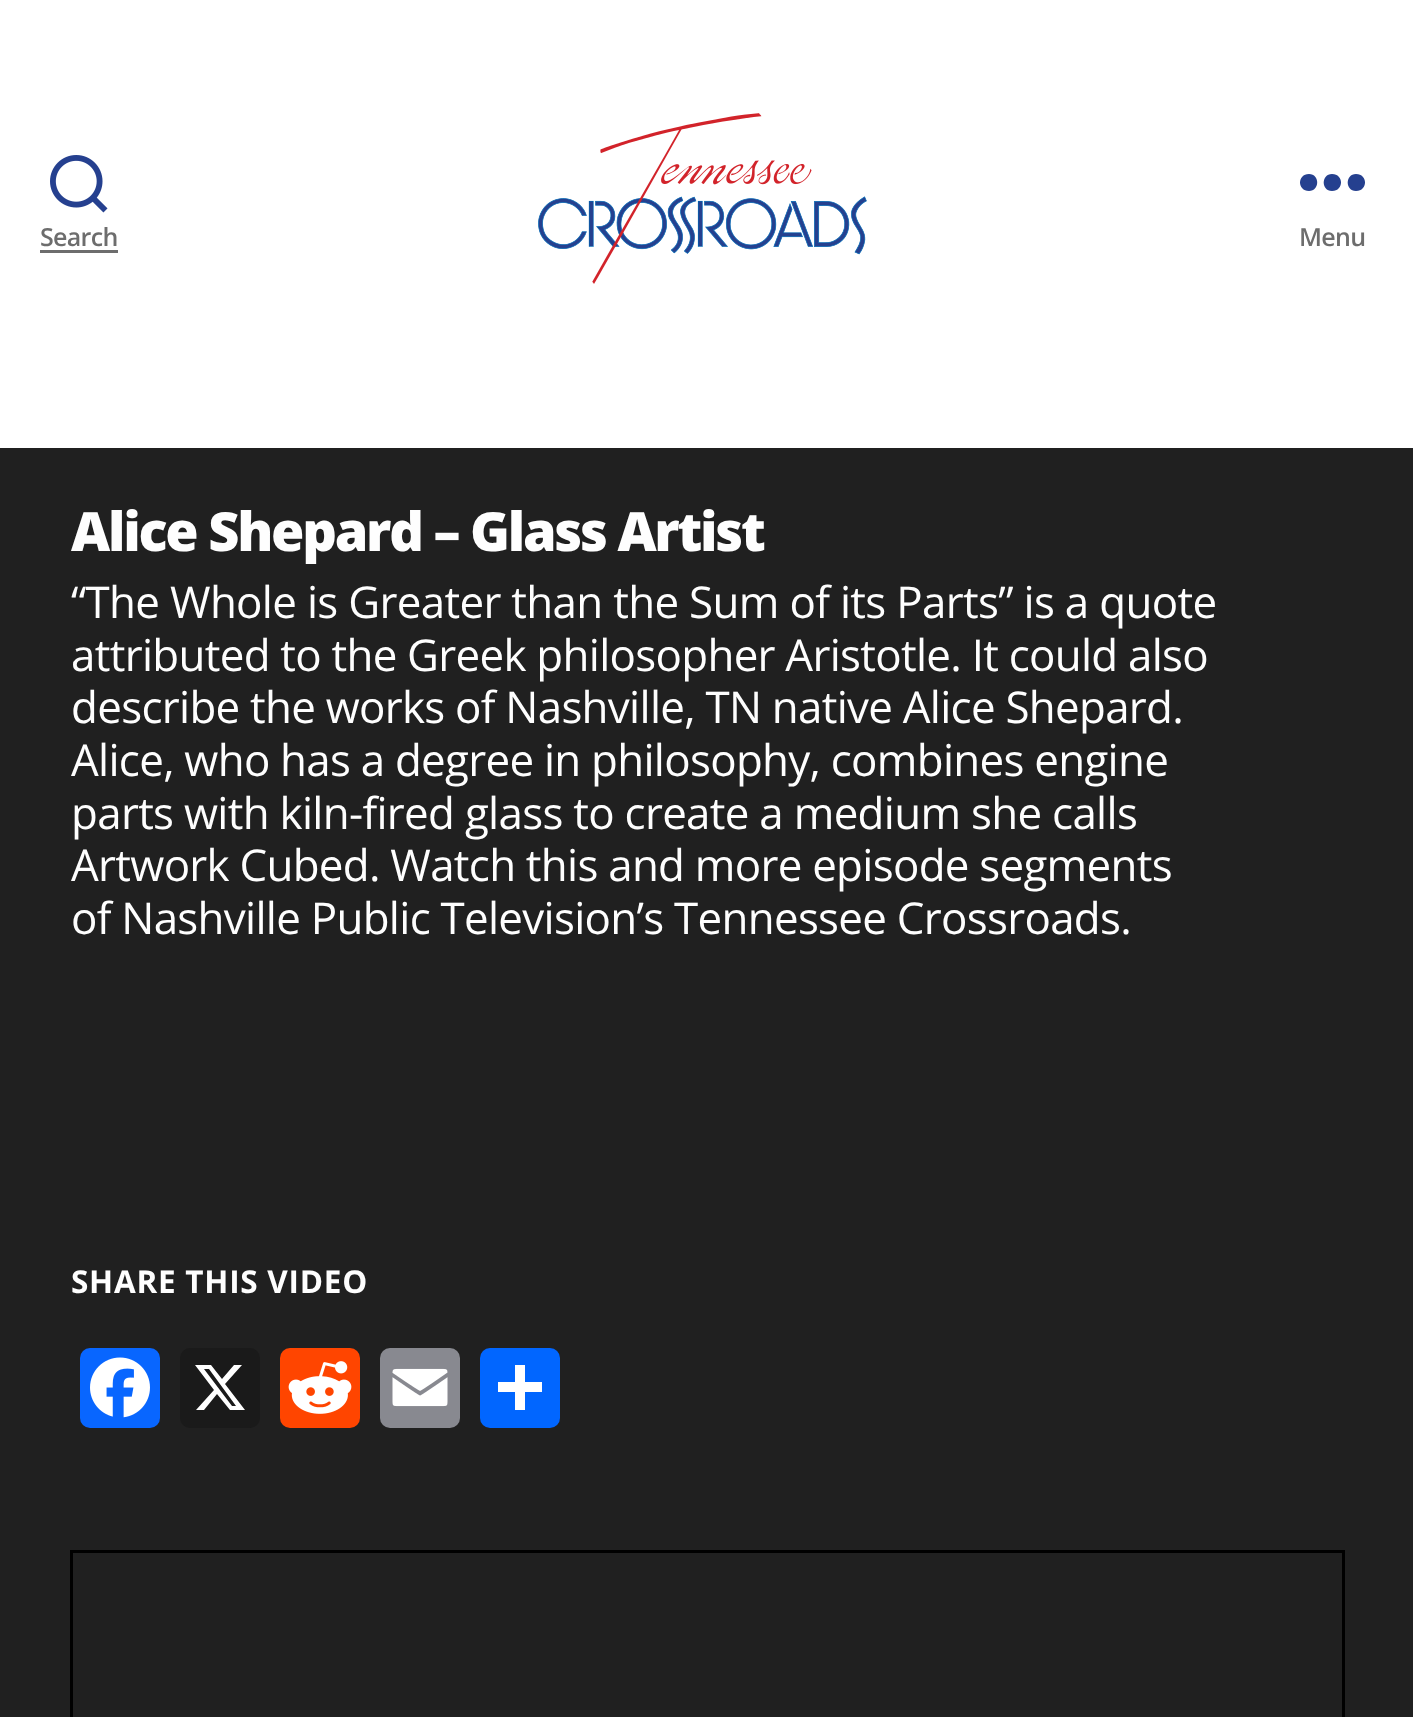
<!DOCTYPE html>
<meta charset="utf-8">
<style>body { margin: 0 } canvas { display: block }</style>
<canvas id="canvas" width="1413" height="1717"></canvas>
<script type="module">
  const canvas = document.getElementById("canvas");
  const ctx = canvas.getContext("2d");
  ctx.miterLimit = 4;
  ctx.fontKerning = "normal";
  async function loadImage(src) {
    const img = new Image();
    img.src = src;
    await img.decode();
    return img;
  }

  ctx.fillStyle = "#ffffff";
  ctx.fillRect(0, 0, 1413, 1717);
  ctx.drawImage(await loadImage("img1.png"), 50, 155, 58, 58);
  ctx.letterSpacing = "-0.68px";
  ctx.font = "600 25px Open Sans";
  ctx.fillStyle = "#6d6d6d";
  ctx.fillText("Search", 40, 246);
  ctx.fillRect(40, 250, 78, 3);
  ctx.drawImage(await loadImage("img2.png"), 538, 113, 329, 171);
  ctx.fillStyle = "#25408f";
  ctx.beginPath();
  ctx.moveTo(1309, 191);
  ctx.bezierCurveTo(1297, 191, 1297, 174, 1309, 174);
  ctx.bezierCurveTo(1320, 174, 1320, 191, 1309, 191);
  ctx.closePath();
  ctx.moveTo(1332, 191);
  ctx.bezierCurveTo(1321, 191, 1321, 174, 1332, 174);
  ctx.bezierCurveTo(1344, 174, 1344, 191, 1332, 191);
  ctx.closePath();
  ctx.moveTo(1356, 191);
  ctx.bezierCurveTo(1345, 191, 1345, 174, 1356, 174);
  ctx.bezierCurveTo(1368, 174, 1368, 191, 1356, 191);
  ctx.closePath();
  ctx.fill("evenodd");
  ctx.fillStyle = "#6d6d6d";
  ctx.fillText("Menu", 1299, 246);
  ctx.fillStyle = "#202020";
  ctx.fillRect(0, 448, 1413, 1269);
  ctx.letterSpacing = "-2.25px";
  ctx.font = "800 54px Open Sans";
  ctx.fillStyle = "#fefefe";
  ctx.fillText("Alice Shepard – Glass Artist", 71, 551);
  ctx.letterSpacing = "-0.68px";
  ctx.font = "43.9px Open Sans";
  ctx.fillText("“The Whole is Greater than the Sum of its Parts” is a quote", 71, 618);
  ctx.wordSpacing = "-0.25px";
  ctx.fillText("attributed to the Greek philosopher Aristotle. It could also", 71, 671);
  ctx.fillText("describe the works of Nashville, TN native Alice Shepard.", 71, 723);
  ctx.fillText("Alice, who has a degree in philosophy, combines engine", 71, 776);
  ctx.wordSpacing = "-0.1px";
  ctx.fillText("parts with kiln-fired glass to create a medium she calls", 71, 829);
  ctx.wordSpacing = "-0.25px";
  ctx.fillText("Artwork Cubed. Watch this and more episode segments", 71, 881);
  ctx.fillText("of Nashville Public Television’s Tennessee Crossroads.", 71, 934);
  ctx.letterSpacing = "0.75px";
  ctx.wordSpacing = "0px";
  ctx.font = "bold 31.5px Open Sans";
  ctx.fillText("SHARE THIS VIDEO", 71, 1293);
  ctx.fillStyle = "#0866ff";
  ctx.beginPath();
  ctx.roundRect(80, 1348, 80, 80, 10);
  ctx.fill();
  ctx.drawImage(await loadImage("img3.png"), 90, 1357, 60, 61);
  ctx.fillStyle = "#1a1a1a";
  ctx.beginPath();
  ctx.roundRect(180, 1348, 80, 80, 10);
  ctx.fill();
  ctx.fillStyle = "#ffffff";
  ctx.beginPath();
  ctx.moveTo(234, 1365);
  ctx.lineTo(242, 1365);
  ctx.lineTo(225, 1384);
  ctx.lineTo(245, 1410);
  ctx.lineTo(230, 1410);
  ctx.lineTo(217, 1394);
  ctx.lineTo(204, 1410);
  ctx.lineTo(196, 1410);
  ctx.lineTo(214, 1390);
  ctx.lineTo(195, 1365);
  ctx.lineTo(211, 1365);
  ctx.lineTo(222, 1379);
  ctx.closePath();
  ctx.moveTo(232, 1406);
  ctx.lineTo(236, 1406);
  ctx.lineTo(209, 1369);
  ctx.lineTo(204, 1369);
  ctx.closePath();
  ctx.fill();
  ctx.fillStyle = "#ff4500";
  ctx.beginPath();
  ctx.roundRect(280, 1348, 80, 80, 10);
  ctx.fill();
  ctx.drawImage(await loadImage("img4.png"), 288, 1361, 64, 53);
  ctx.fillStyle = "#888990";
  ctx.beginPath();
  ctx.roundRect(380, 1348, 80, 80, 10);
  ctx.fill();
  ctx.drawImage(await loadImage("img5.png"), 392, 1368, 56, 39);
  ctx.fillStyle = "#0166ff";
  ctx.beginPath();
  ctx.roundRect(480, 1348, 80, 80, 10);
  ctx.fill();
  ctx.fillStyle = "#ffffff";
  ctx.fillRect(515, 1365, 10, 45);
  ctx.fillRect(498, 1382, 44, 10);
  ctx.strokeStyle = "#000000";
  ctx.lineWidth = 3;
  ctx.strokeRect(71.5, 1551.5, 1272, 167);
</script>
